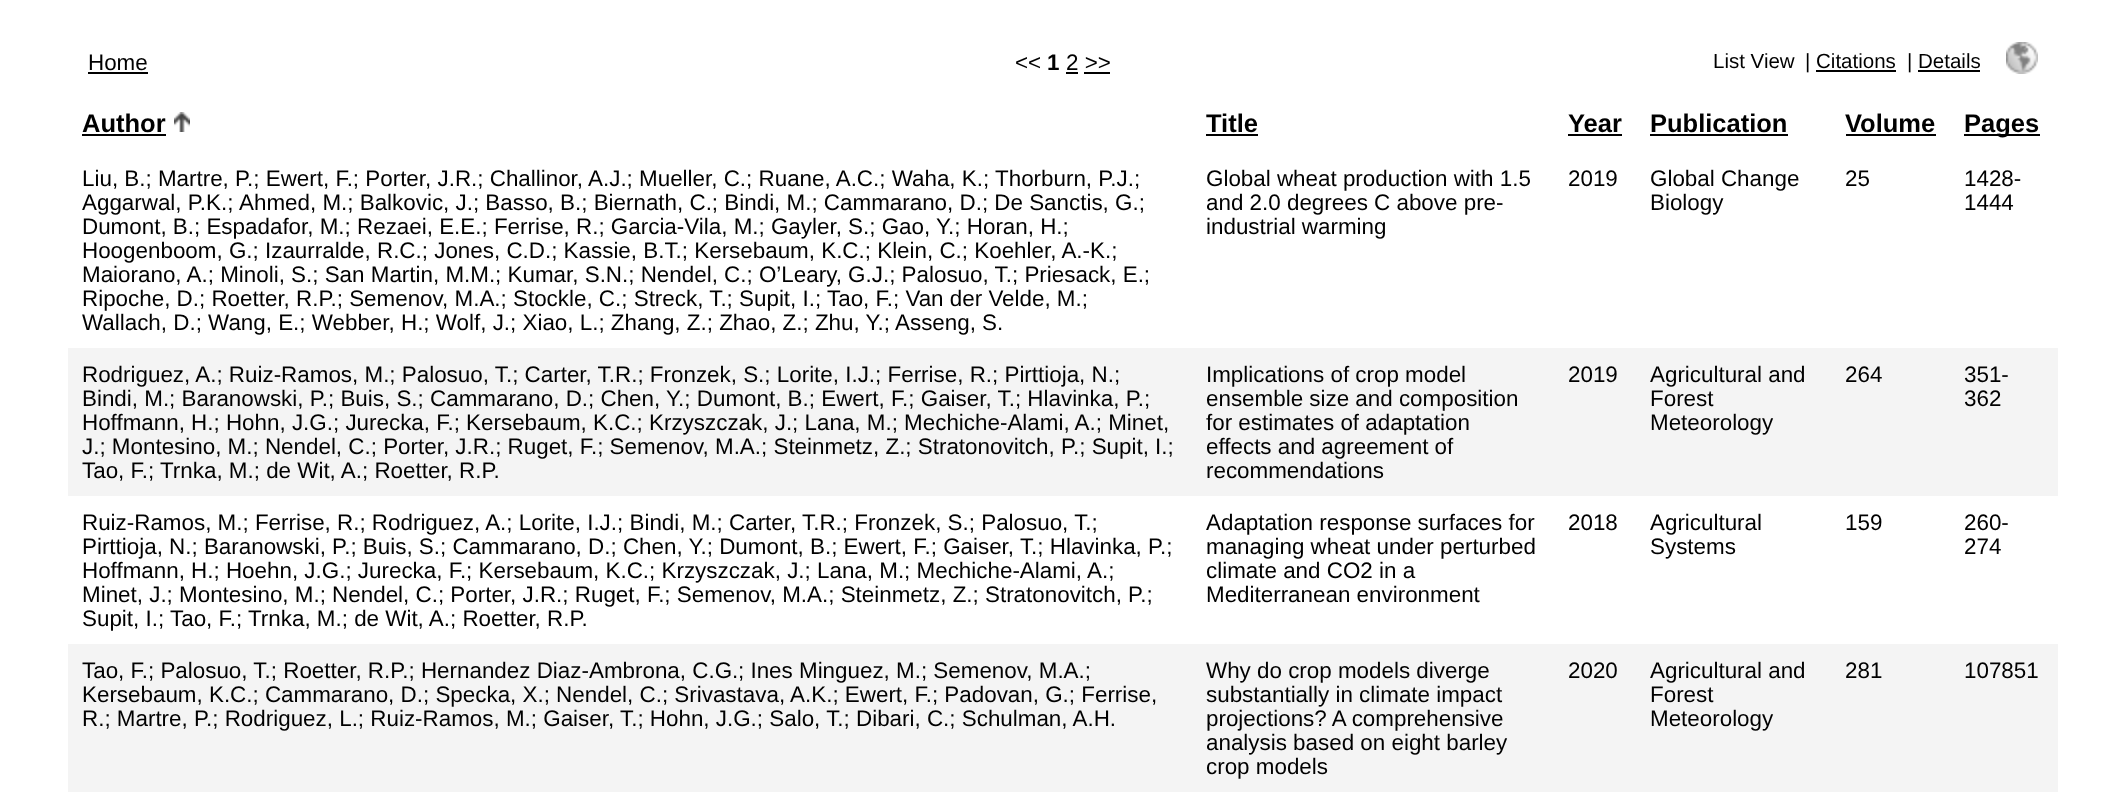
<!DOCTYPE html>
<meta charset="utf-8">
<style>body { margin: 0 } canvas { display: block }</style>
<canvas id="canvas" width="2126" height="807"></canvas>
<script type="module">
  const canvas = document.getElementById("canvas");
  const ctx = canvas.getContext("2d");
  ctx.miterLimit = 4;
  ctx.fontKerning = "normal";
  async function loadImage(src) {
    const img = new Image();
    img.src = src;
    await img.decode();
    return img;
  }

  ctx.fillStyle = "#ffffff";
  ctx.fillRect(0, 0, 2126, 807);
  ctx.font = "22.4px Liberation Sans";
  ctx.fillStyle = "#000000";
  ctx.fillText("Home", 88, 70);
  ctx.fillRect(88, 72, 60, 2);
  ctx.fillText("<<", 1015, 70);
  ctx.font = "bold 22.4px Liberation Sans";
  ctx.fillText("1", 1047, 70);
  ctx.font = "22.4px Liberation Sans";
  ctx.fillText("2 >>", 1066, 70);
  ctx.fillRect(1066, 72, 12, 2);
  ctx.fillRect(1084, 72, 26, 2);
  ctx.font = "20.5px Liberation Sans";
  ctx.fillText("List View", 1713, 68);
  ctx.fillText("| Citations", 1805, 68);
  ctx.fillRect(1816, 70, 80, 2);
  ctx.fillText("| Details", 1907, 68);
  ctx.fillRect(1918, 70, 62, 2);
  ctx.drawImage(await loadImage("img1.png"), 2006, 42, 32, 32);
  ctx.font = "bold 25.5px Liberation Sans";
  ctx.fillText("Author", 82, 132);
  ctx.fillRect(82, 134, 84, 2);
  ctx.drawImage(await loadImage("img2.png"), 174, 112, 16, 20);
  ctx.fillText("Title", 1206, 132);
  ctx.fillRect(1206, 134, 52, 2);
  ctx.fillText("Year", 1568, 132);
  ctx.fillRect(1568, 134, 54, 2);
  ctx.fillText("Publication", 1650, 132);
  ctx.fillRect(1650, 134, 138, 2);
  ctx.fillText("Volume", 1845, 132);
  ctx.fillRect(1846, 134, 90, 2);
  ctx.fillRect(1964, 134, 76, 2);
  ctx.fillText("Pages", 1964, 132);
  ctx.font = "22.4px Liberation Sans";
  ctx.fillText("Liu, B.; Martre, P.; Ewert, F.; Porter, J.R.; Challinor, A.J.; Mueller, C.; Ruane, A.C.; Waha, K.;", 82, 186);
  ctx.fillText("Thorburn, P.J.;", 995, 186);
  ctx.fillText("Aggarwal, P.K.;", 82, 210);
  ctx.fillText("Ahmed, M.; Balkovic, J.; Basso, B.; Biernath, C.; Bindi, M.; Cammarano, D.; De Sanctis, G.;", 239, 210);
  ctx.fillText("Dumont, B.; Espadafor, M.; Rezaei, E.E.; Ferrise, R.; Garcia-Vila, M.; Gayler, S.; Gao, Y.; Horan, H.;", 82, 234);
  ctx.fillText("Hoogenboom, G.; Izaurralde, R.C.; Jones, C.D.; Kassie, B.T.; Kersebaum, K.C.; Klein, C.; Koehler, A.-K.;", 82, 258);
  ctx.fillText("Maiorano, A.; Minoli, S.; San Martin, M.M.; Kumar, S.N.; Nendel, C.; O’Leary, G.J.; Palosuo, T.; Priesack, E.;", 82, 282);
  ctx.fillText("Ripoche, D.; Roetter, R.P.; Semenov, M.A.; Stockle, C.; Streck, T.; Supit, I.;", 82, 306);
  ctx.fillText("Tao, F.; Van der Velde, M.;", 827, 306);
  ctx.fillText("Wallach, D.; Wang, E.; Webber, H.; Wolf, J.; Xiao, L.; Zhang, Z.; Zhao, Z.; Zhu, Y.;", 82, 330);
  ctx.fillText("Asseng, S.", 895, 330);
  ctx.fillText("Global wheat production with 1.5", 1206, 186);
  ctx.fillText("and 2.0 degrees C above pre-", 1206, 210);
  ctx.fillText("industrial warming", 1206, 234);
  ctx.fillText("2019", 1568, 186);
  ctx.fillText("Global Change", 1650, 186);
  ctx.fillText("Biology", 1650, 210);
  ctx.fillText("25", 1845, 186);
  ctx.fillText("1428-", 1964, 186);
  ctx.fillText("1444", 1964, 210);
  ctx.fillStyle = "#f4f4f4";
  ctx.fillRect(68, 348, 1990, 148);
  ctx.fillStyle = "#000000";
  ctx.fillText("Rodriguez, A.; Ruiz-Ramos, M.; Palosuo, T.; Carter, T.R.; Fronzek, S.; Lorite, I.J.; Ferrise, R.; Pirttioja, N.;", 82, 382);
  ctx.fillText("Bindi, M.; Baranowski, P.; Buis, S.; Cammarano, D.; Chen, Y.; Dumont, B.; Ewert, F.; Gaiser, T.; Hlavinka, P.;", 82, 406);
  ctx.fillText("Hoffmann, H.; Hohn, J.G.; Jurecka, F.; Kersebaum, K.C.; Krzyszczak, J.; Lana, M.; Mechiche-Alami, A.; Minet,", 82, 430);
  ctx.fillText("J.; Montesino, M.; Nendel, C.; Porter, J.R.; Ruget, F.; Semenov, M.A.; Steinmetz, Z.; Stratonovitch, P.; Supit, I.;", 82, 454);
  ctx.fillText("Tao, F.;", 82, 478);
  ctx.fillText("Trnka, M.; de Wit, A.; Roetter, R.P.", 160, 478);
  ctx.fillText("Implications of crop model", 1206, 382);
  ctx.fillText("ensemble size and composition", 1206, 406);
  ctx.fillText("for estimates of adaptation", 1206, 430);
  ctx.fillText("effects and agreement of", 1206, 454);
  ctx.fillText("recommendations", 1206, 478);
  ctx.fillText("2019", 1568, 382);
  ctx.fillText("Agricultural and", 1650, 382);
  ctx.fillText("Forest", 1650, 406);
  ctx.fillText("Meteorology", 1650, 430);
  ctx.fillText("264", 1845, 382);
  ctx.fillText("351-", 1964, 382);
  ctx.fillText("362", 1964, 406);
  ctx.fillText("Ruiz-Ramos, M.; Ferrise, R.; Rodriguez, A.; Lorite, I.J.; Bindi, M.; Carter, T.R.; Fronzek, S.; Palosuo, T.;", 82, 530);
  ctx.fillText("Pirttioja, N.; Baranowski, P.; Buis, S.; Cammarano, D.; Chen, Y.; Dumont, B.; Ewert, F.; Gaiser, T.; Hlavinka, P.;", 82, 554);
  ctx.fillText("Hoffmann, H.; Hoehn, J.G.; Jurecka, F.; Kersebaum, K.C.; Krzyszczak, J.; Lana, M.; Mechiche-Alami, A.;", 82, 578);
  ctx.fillText("Minet, J.; Montesino, M.; Nendel, C.; Porter, J.R.; Ruget, F.; Semenov, M.A.; Steinmetz, Z.; Stratonovitch, P.;", 82, 602);
  ctx.fillText("Supit, I.;", 82, 626);
  ctx.fillText("Tao, F.;", 170, 626);
  ctx.fillText("Trnka, M.; de Wit, A.; Roetter, R.P.", 248, 626);
  ctx.fillText("Adaptation response surfaces for", 1206, 530);
  ctx.fillText("managing wheat under perturbed", 1206, 554);
  ctx.fillText("climate and CO2 in a", 1206, 578);
  ctx.fillText("Mediterranean environment", 1206, 602);
  ctx.fillText("2018", 1568, 530);
  ctx.fillText("Agricultural", 1650, 530);
  ctx.fillText("Systems", 1650, 554);
  ctx.fillText("159", 1845, 530);
  ctx.fillText("260-", 1964, 530);
  ctx.fillText("274", 1964, 554);
  ctx.fillStyle = "#f4f4f4";
  ctx.fillRect(68, 644, 1990, 148);
  ctx.fillStyle = "#000000";
  ctx.fillText("Tao, F.; Palosuo, T.; Roetter, R.P.; Hernandez Diaz-Ambrona, C.G.", 82, 678);
  ctx.fillText("; Ines Minguez, M.; Semenov, M.A.;", 738, 678);
  ctx.fillText("Kersebaum, K.C.; Cammarano, D.; Specka, X.; Nendel, C.; Srivastava, A.K.; Ewert, F.; Padovan, G.; Ferrise,", 82, 702);
  ctx.fillText("R.; Martre, P.; Rodriguez, L.; Ruiz-Ramos, M.; Gaiser, T.; Hohn, J.G.; Salo, T.; Dibari, C.; Schulman, A.H.", 82, 726);
  ctx.fillText("Why do crop models diverge", 1206, 678);
  ctx.fillText("substantially in climate impact", 1206, 702);
  ctx.fillText("projections? A comprehensive", 1206, 726);
  ctx.fillText("analysis based on eight barley", 1206, 750);
  ctx.fillText("crop models", 1206, 774);
  ctx.fillText("2020", 1568, 678);
  ctx.fillText("Agricultural and", 1650, 678);
  ctx.fillText("Forest", 1650, 702);
  ctx.fillText("Meteorology", 1650, 726);
  ctx.fillText("281", 1845, 678);
  ctx.fillText("107851", 1964, 678);
</script>
